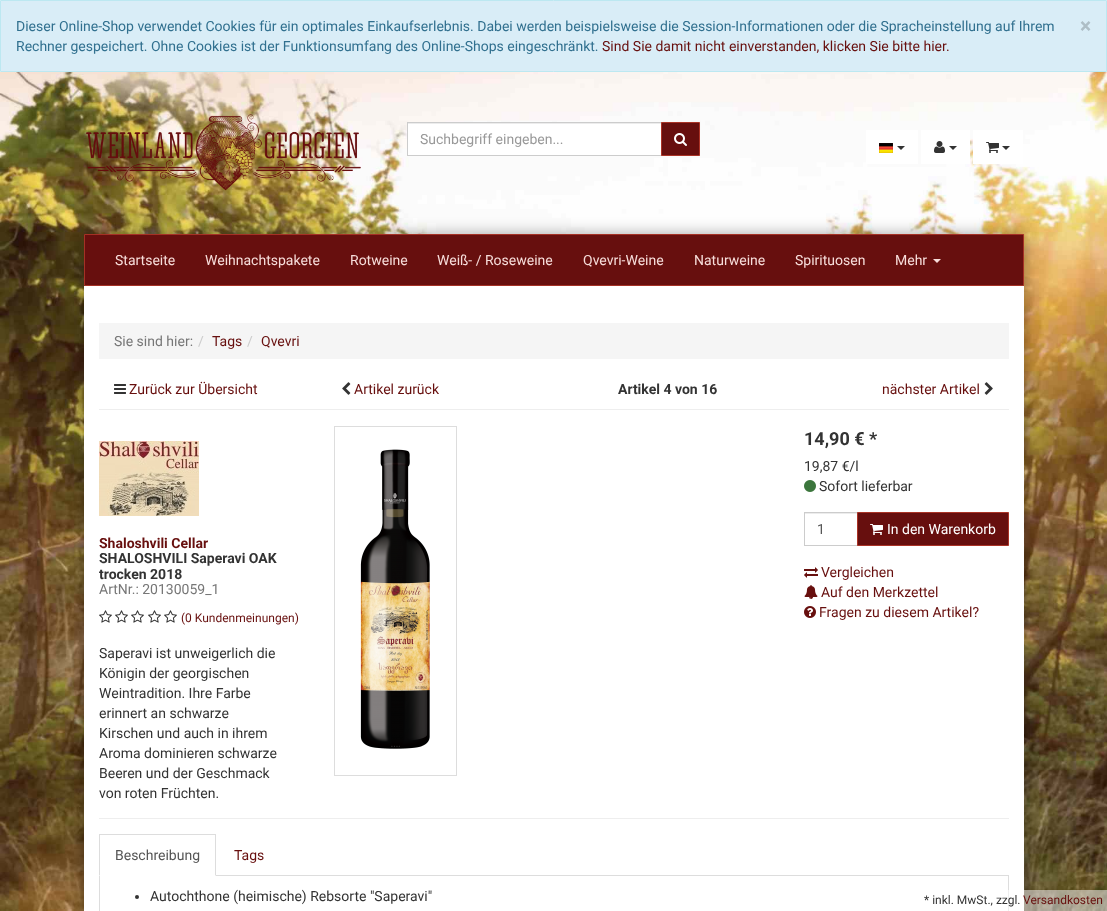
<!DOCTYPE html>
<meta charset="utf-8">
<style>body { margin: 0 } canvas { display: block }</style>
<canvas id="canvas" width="1107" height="911"></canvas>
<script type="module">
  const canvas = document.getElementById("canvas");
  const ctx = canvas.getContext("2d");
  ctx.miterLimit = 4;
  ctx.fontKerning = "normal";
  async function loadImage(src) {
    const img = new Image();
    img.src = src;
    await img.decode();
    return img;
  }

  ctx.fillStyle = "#ffffff";
  ctx.fillRect(0, 0, 1107, 911);
  ctx.drawImage(await loadImage("img1.png"), 0, 72, 1107, 839);
  ctx.fillStyle = "#d9edf7";
  ctx.beginPath();
  ctx.rect(0.5, 0.5, 1106, 71);
  ctx.fill();
  ctx.strokeStyle = "#bce8f1";
  ctx.stroke();
  ctx.font = "14px Roboto";
  ctx.fillStyle = "#31708f";
  ctx.fillText("Dieser Online-Shop verwendet Cookies für ein optimales Einkaufserlebnis. Dabei werden beispielsweise die Session-Informationen oder die Spracheinstellung auf Ihrem", 16, 31);
  ctx.font = "bold 21px Roboto";
  ctx.fillStyle = "#aebec6";
  ctx.fillText("×", 1080, 33);
  ctx.font = "14px Roboto";
  ctx.fillStyle = "#31708f";
  ctx.fillText("Rechner gespeichert. Ohne Cookies ist der Funktionsumfang des Online-Shops eingeschränkt.", 16, 51);
  ctx.fillStyle = "#670f0e";
  ctx.fillText("Sind Sie damit nicht einverstanden, klicken Sie bitte hier.", 602, 51);
  ctx.drawImage(await loadImage("img2.png"), 86, 114, 275, 77);
  ctx.fillStyle = "#ffffff";
  ctx.fillRect(408, 124, 253, 31);
  ctx.fillStyle = "#ececec";
  ctx.fillRect(408, 123, 253, 1);
  ctx.strokeStyle = "#cccccc";
  ctx.strokeRect(407.5, 122.5, 254, 33);
  ctx.fillStyle = "#999999";
  ctx.fillText("Suchbegriff eingeben...", 420, 144);
  ctx.fillStyle = "#670f0e";
  ctx.beginPath();
  ctx.rect(661.5, 122.5, 38, 33);
  ctx.fill();
  ctx.strokeStyle = "#ab3326";
  ctx.stroke();
  ctx.drawImage(await loadImage("img3.png"), 674, 133, 13, 13);
  ctx.fillStyle = "#ffffff";
  ctx.fillRect(866, 130, 52, 34);
  ctx.drawImage(await loadImage("img4.png"), 879, 143, 14, 10);
  ctx.fillStyle = "#333333";
  ctx.beginPath();
  ctx.moveTo(897, 146);
  ctx.lineTo(905, 146);
  ctx.lineTo(901, 150);
  ctx.closePath();
  ctx.fill();
  ctx.fillStyle = "#ffffff";
  ctx.fillRect(921, 130, 49, 34);
  ctx.drawImage(await loadImage("img5.png"), 934, 141, 11, 12);
  ctx.fillStyle = "#333333";
  ctx.beginPath();
  ctx.moveTo(949, 146);
  ctx.lineTo(957, 146);
  ctx.lineTo(953, 150);
  ctx.closePath();
  ctx.fill();
  ctx.fillStyle = "#ffffff";
  ctx.fillRect(973, 130, 50, 34);
  ctx.drawImage(await loadImage("img6.png"), 986, 142, 13, 11);
  ctx.fillStyle = "#333333";
  ctx.beginPath();
  ctx.moveTo(1002, 146);
  ctx.lineTo(1010, 146);
  ctx.lineTo(1006, 150);
  ctx.closePath();
  ctx.fill();
  ctx.fillStyle = "rgba(0, 0, 0, 0.35)";
  ctx.filter = "blur(7.5px)";
  ctx.beginPath();
  ctx.rect(84, 234, 940, 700);
  ctx.fill();
  ctx.filter = "none";
  ctx.fillStyle = "#670f0e";
  ctx.beginPath();
  ctx.rect(84.5, 234.5, 939, 51);
  ctx.fill();
  ctx.strokeStyle = "#a53125";
  ctx.stroke();
  ctx.fillStyle = "#f7ddda";
  ctx.fillText("Startseite", 115, 265);
  ctx.fillText("Weihnachtspakete", 205, 265);
  ctx.fillText("Rotweine", 350, 265);
  ctx.fillText("Weiß- / Roseweine", 437, 265);
  ctx.fillText("Qvevri-Weine", 583, 265);
  ctx.fillText("Naturweine", 694, 265);
  ctx.fillText("Spirituosen", 795, 265);
  ctx.fillText("Mehr", 895, 265);
  ctx.beginPath();
  ctx.moveTo(933, 259);
  ctx.lineTo(941, 259);
  ctx.lineTo(937, 263);
  ctx.closePath();
  ctx.fill();
  ctx.fillStyle = "#ffffff";
  ctx.fillRect(84, 286, 940, 625);
  ctx.fillStyle = "#f5f5f5";
  ctx.fillRect(99, 323, 910, 36);
  ctx.fillStyle = "#777777";
  ctx.fillText("Sie sind hier:", 114, 346);
  ctx.fillStyle = "#cccccc";
  ctx.fillText("/", 198, 346);
  ctx.fillStyle = "#670f0e";
  ctx.fillText("Tags", 212, 346);
  ctx.fillStyle = "#cccccc";
  ctx.fillText("/", 247, 346);
  ctx.fillStyle = "#670f0e";
  ctx.fillText("Qvevri", 261, 346);
  ctx.fillStyle = "#eeeeee";
  ctx.fillRect(99, 409, 910, 1);
  ctx.drawImage(await loadImage("img7.png"), 114, 384, 12, 10);
  ctx.fillStyle = "#670f0e";
  ctx.fillText("Zurück zur Übersicht", 129, 394);
  ctx.drawImage(await loadImage("img8.png"), 342, 382, 9, 13);
  ctx.fillText("Artikel zurück", 354, 394);
  ctx.font = "bold 14px Roboto";
  ctx.fillStyle = "#333333";
  ctx.fillText("Artikel 4 von 16", 618, 394);
  ctx.font = "14px Roboto";
  ctx.fillStyle = "#670f0e";
  ctx.fillText("nächster Artikel", 882, 394);
  ctx.drawImage(await loadImage("img9.png"), 984, 382, 9, 13);
  ctx.fillStyle = "#eeeeee";
  ctx.fillRect(99, 818, 910, 1);
  ctx.drawImage(await loadImage("img10.png"), 99, 441, 100, 75);
  ctx.font = "bold 14px Roboto";
  ctx.fillStyle = "#670f0e";
  ctx.fillText("Shaloshvili Cellar", 99, 548);
  ctx.fillStyle = "#333333";
  ctx.fillText("SHALOSHVILI Saperavi OAK", 99, 563);
  ctx.fillText("trocken 2018", 99, 579);
  ctx.font = "14px Roboto";
  ctx.fillStyle = "#777777";
  ctx.fillText("ArtNr.: 20130059_1", 99, 594);
  ctx.drawImage(await loadImage("img11.png"), 99, 610, 13, 13);
  ctx.drawImage(await loadImage("img11.png"), 115, 610, 13, 13);
  ctx.drawImage(await loadImage("img11.png"), 131, 610, 13, 13);
  ctx.drawImage(await loadImage("img11.png"), 148, 610, 13, 13);
  ctx.drawImage(await loadImage("img11.png"), 164, 610, 13, 13);
  ctx.font = "12px Roboto";
  ctx.fillStyle = "#670f0e";
  ctx.fillText("(0 Kundenmeinungen)", 181, 622);
  ctx.font = "14px Roboto";
  ctx.fillStyle = "#333333";
  ctx.fillText("Saperavi ist unweigerlich die", 99, 658);
  ctx.fillText("Königin der georgischen", 99, 678);
  ctx.fillText("Weintradition. Ihre Farbe", 99, 698);
  ctx.fillText("erinnert an schwarze", 99, 718);
  ctx.fillText("Kirschen und auch in ihrem", 99, 738);
  ctx.fillText("Aroma dominieren schwarze", 99, 758);
  ctx.fillText("Beeren und der Geschmack", 99, 778);
  ctx.fillText("von roten Früchten.", 99, 798);
  ctx.strokeStyle = "#dddddd";
  ctx.strokeRect(334.5, 426.5, 122, 349);
  ctx.drawImage(await loadImage("img12.png"), 360, 449, 70, 300);
  ctx.font = "bold 18px Roboto";
  ctx.fillText("14,90 € *", 804, 445);
  ctx.font = "14px Roboto";
  ctx.fillText("19,87 €/l", 804, 471);
  ctx.drawImage(await loadImage("img13.png"), 804, 480, 12, 12);
  ctx.fillText("Sofort lieferbar", 819, 491);
  ctx.fillStyle = "#ececec";
  ctx.fillRect(805, 513, 52, 1);
  ctx.strokeStyle = "#cccccc";
  ctx.strokeRect(804.5, 512.5, 53, 33);
  ctx.fillStyle = "#555555";
  ctx.fillText("1", 817, 534);
  ctx.fillStyle = "#670f0e";
  ctx.beginPath();
  ctx.rect(857.5, 512.5, 151, 33);
  ctx.fill();
  ctx.strokeStyle = "#ab3326";
  ctx.stroke();
  ctx.drawImage(await loadImage("img14.png"), 870, 524, 13, 11);
  ctx.fillStyle = "#ffffff";
  ctx.fillText("In den Warenkorb", 887, 534);
  ctx.drawImage(await loadImage("img15.png"), 804, 567, 14, 11);
  ctx.fillStyle = "#670f0e";
  ctx.fillText("Vergleichen", 821, 577);
  ctx.drawImage(await loadImage("img16.png"), 804, 585, 14, 14);
  ctx.fillText("Auf den Merkzettel", 821, 597);
  ctx.drawImage(await loadImage("img17.png"), 804, 606, 12, 12);
  ctx.fillText("Fragen zu diesem Artikel?", 819, 617);
  ctx.fillStyle = "#dddddd";
  ctx.fillRect(216, 875, 793, 1);
  ctx.fillRect(99, 834, 117, 1);
  ctx.beginPath();
  ctx.moveTo(216, 834);
  ctx.lineTo(216, 876);
  ctx.lineTo(215, 875);
  ctx.lineTo(215, 835);
  ctx.closePath();
  ctx.fill();
  ctx.beginPath();
  ctx.moveTo(99, 876);
  ctx.lineTo(99, 834);
  ctx.lineTo(100, 835);
  ctx.lineTo(100, 875);
  ctx.closePath();
  ctx.fill();
  ctx.fillStyle = "#555555";
  ctx.fillText("Beschreibung", 115, 860);
  ctx.fillStyle = "#670f0e";
  ctx.fillText("Tags", 234, 860);
  ctx.fillStyle = "#dddddd";
  ctx.fillRect(1008, 876, 1, 35);
  ctx.fillRect(99, 876, 1, 35);
  ctx.fillStyle = "#333333";
  ctx.beginPath();
  ctx.arc(137, 897, 2, 0, Math.PI * 2);
  ctx.fill();
  ctx.fillText("Autochthone (heimische) Rebsorte \"Saperavi\"", 150, 901);
  ctx.fillStyle = "rgba(255, 255, 255, 0.5)";
  ctx.fillRect(1008, 890, 99, 21);
  ctx.font = "12px Roboto";
  ctx.fillStyle = "#333333";
  ctx.fillText("* inkl. MwSt., zzgl.", 924, 904);
  ctx.fillStyle = "#670f0e";
  ctx.fillText("Versandkosten", 1023, 904);
</script>
